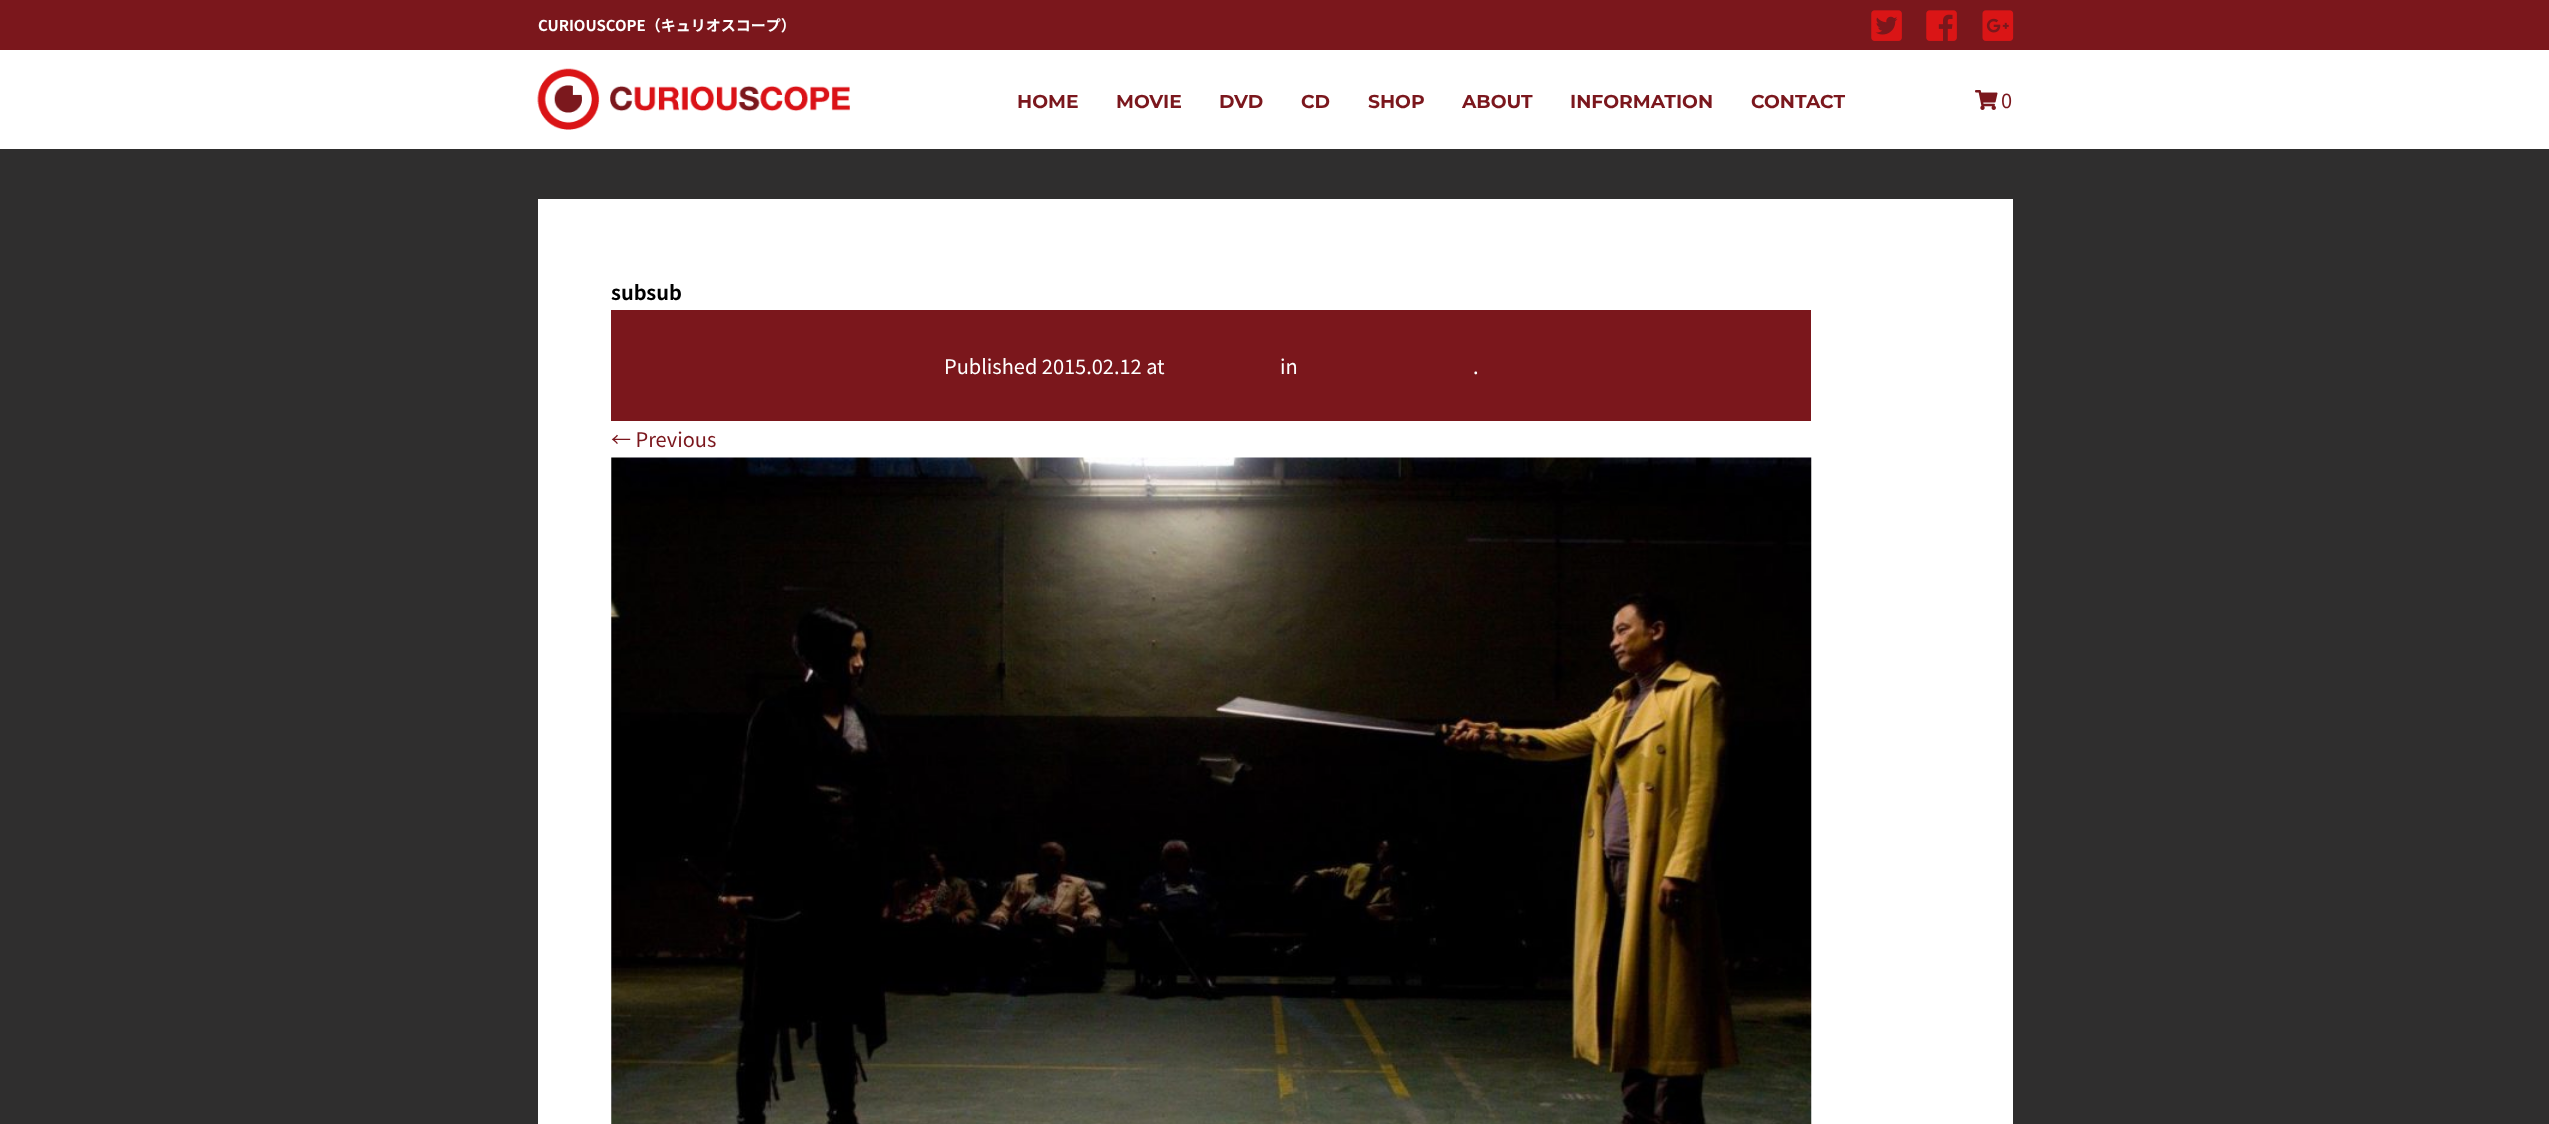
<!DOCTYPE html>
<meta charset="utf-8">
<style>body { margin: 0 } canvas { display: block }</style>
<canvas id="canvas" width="2549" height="1124"></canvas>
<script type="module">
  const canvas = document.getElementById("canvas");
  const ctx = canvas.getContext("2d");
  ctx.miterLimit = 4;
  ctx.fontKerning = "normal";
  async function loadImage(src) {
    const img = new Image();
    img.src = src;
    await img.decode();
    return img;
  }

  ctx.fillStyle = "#ffffff";
  ctx.fillRect(0, 0, 2549, 1124);
  ctx.fillStyle = "#7b171c";
  ctx.fillRect(0, 0, 2549, 50);
  ctx.font = "bold 15px Noto Sans JP";
  ctx.fillStyle = "#ffffff";
  ctx.fillText("CURIOUSCOPE（キュリオスコープ）", 538, 31);
  ctx.drawImage(await loadImage("img1.png"), 1871, 10, 31, 31);
  ctx.drawImage(await loadImage("img2.png"), 1926, 10, 31, 31);
  ctx.drawImage(await loadImage("img3.png"), 1982, 10, 32, 31);
  ctx.drawImage(await loadImage("img4.png"), 537, 68, 313, 62);
  ctx.font = "100 18.75px Montserrat";
  ctx.fillStyle = "#7b171d";
  ctx.fillText("HOME", 1017, 108);
  ctx.fillText("MOVIE", 1116, 108);
  ctx.fillText("DVD", 1219, 108);
  ctx.fillText("CD", 1301, 108);
  ctx.fillText("SHOP", 1368, 108);
  ctx.fillText("ABOUT", 1462, 108);
  ctx.fillText("INFORMATION", 1570, 108);
  ctx.fillText("CONTACT", 1751, 108);
  ctx.drawImage(await loadImage("img5.png"), 1975, 90, 23, 20);
  ctx.font = "20px Noto Sans JP";
  ctx.fillText("0", 2001, 108);
  ctx.fillStyle = "#2f2e2e";
  ctx.fillRect(0, 149, 2549, 975);
  ctx.fillStyle = "#ffffff";
  ctx.fillRect(538, 199, 1475, 925);
  ctx.font = "bold 20px Noto Sans JP";
  ctx.fillStyle = "#000000";
  ctx.fillText("subsub", 611, 300);
  ctx.fillStyle = "#7b171c";
  ctx.fillRect(611, 310, 1200, 111);
  ctx.font = "20px Noto Sans JP";
  ctx.fillStyle = "#ffffff";
  ctx.fillText("Published 2015.02.12 at", 944, 374);
  ctx.fillText("in", 1280, 374);
  ctx.fillText(".", 1473, 374);
  ctx.fillStyle = "#7b171d";
  ctx.fillText("← Previous", 611, 447);
  ctx.drawImage(await loadImage("img6.png"), 611, 457, 1201, 667);
</script>
